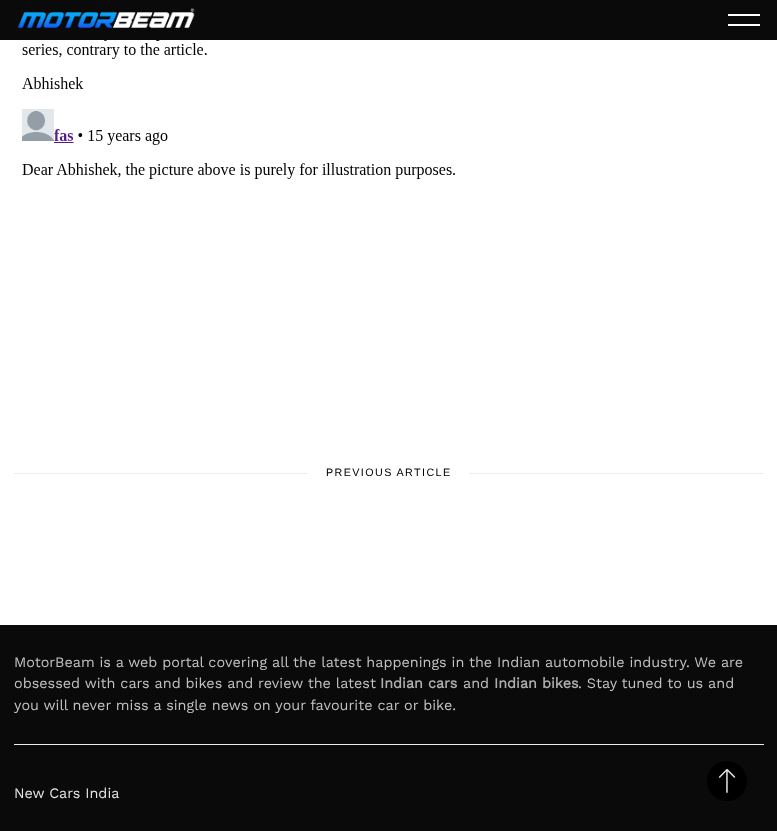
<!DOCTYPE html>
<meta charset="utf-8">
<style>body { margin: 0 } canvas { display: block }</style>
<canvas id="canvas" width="777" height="831"></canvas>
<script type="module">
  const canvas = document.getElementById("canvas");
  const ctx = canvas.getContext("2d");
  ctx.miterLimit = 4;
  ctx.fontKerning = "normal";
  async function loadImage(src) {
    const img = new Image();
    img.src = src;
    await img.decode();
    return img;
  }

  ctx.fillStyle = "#ffffff";
  ctx.fillRect(0, 0, 777, 831);
  ctx.fillStyle = "#0a0a0a";
  ctx.fillRect(0, 0, 777, 40);
  ctx.drawImage(await loadImage("img1.png"), 17, 8, 178, 20);
  ctx.fillStyle = "#ffffff";
  ctx.fillRect(728, 14, 32, 2);
  ctx.fillRect(728, 24, 32, 2);
  ctx.drawImage(await loadImage("img2.png"), 22, 40, 433, 139);
  ctx.fillStyle = "#ededed";
  ctx.fillRect(14, 473, 294, 1);
  ctx.letterSpacing = "1.4px";
  ctx.font = "10.75px Liberation Sans";
  ctx.fillStyle = "#000000";
  ctx.fillText("PREVIOUS ARTICLE", 326, 476);
  ctx.fillStyle = "#ededed";
  ctx.fillRect(469, 473, 295, 1);
  ctx.fillStyle = "#0a0a0a";
  ctx.fillRect(0, 625, 777, 206);
  ctx.letterSpacing = "0px";
  ctx.font = "14.4px Work Sans";
  ctx.fillStyle = "#c2c2c2";
  ctx.fillText("MotorBeam is a web portal covering all the latest happenings in the Indian automobile industry. We are", 14, 667);
  ctx.fillText("obsessed with cars and bikes and review the latest", 14, 688);
  ctx.font = "bold 14.4px Work Sans";
  ctx.fillStyle = "#aeaeae";
  ctx.fillText("Indian cars", 380, 688);
  ctx.font = "14.4px Work Sans";
  ctx.fillStyle = "#c2c2c2";
  ctx.fillText("and", 463, 688);
  ctx.font = "bold 14.4px Work Sans";
  ctx.fillStyle = "#aeaeae";
  ctx.fillText("Indian bikes", 494, 688);
  ctx.font = "14.4px Work Sans";
  ctx.fillStyle = "#c2c2c2";
  ctx.fillText(". Stay tuned to us and", 578, 688);
  ctx.fillText("you will never miss a single news on your favourite car or bike.", 14, 710);
  ctx.fillStyle = "#ededed";
  ctx.fillRect(14, 744, 750, 1);
  ctx.fillStyle = "#e5e5e5";
  ctx.fillText("New Cars India", 14, 798);
  ctx.fillStyle = "#000000";
  ctx.beginPath();
  ctx.arc(727, 781, 20, 0, Math.PI * 2);
  ctx.fill();
  ctx.drawImage(await loadImage("img3.png"), 718, 769, 18, 24);
</script>
